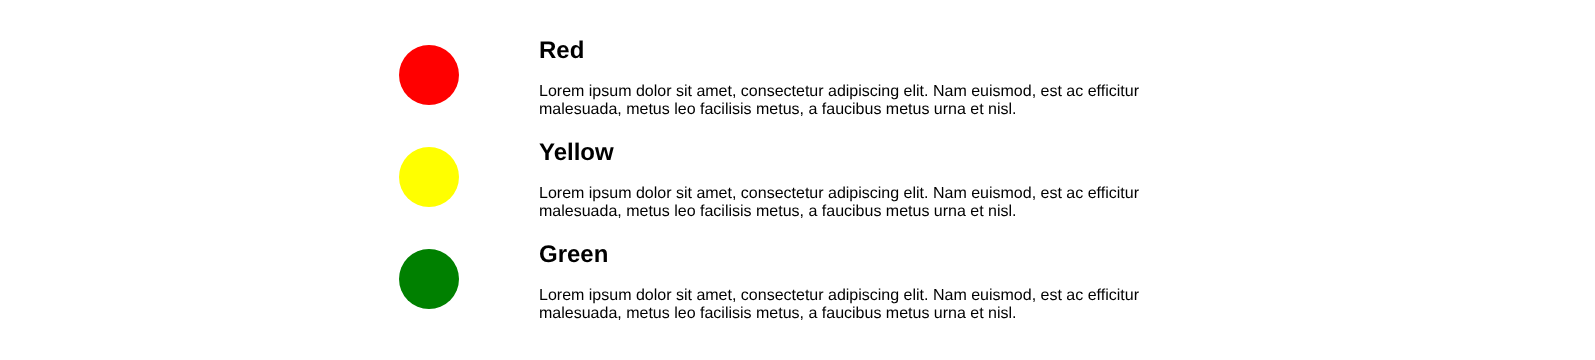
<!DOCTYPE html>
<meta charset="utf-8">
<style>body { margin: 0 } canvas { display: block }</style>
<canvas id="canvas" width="1595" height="360"></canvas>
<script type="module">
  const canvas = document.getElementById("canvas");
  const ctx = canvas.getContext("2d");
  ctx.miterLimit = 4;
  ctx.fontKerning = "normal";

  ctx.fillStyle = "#ffffff";
  ctx.fillRect(0, 0, 1595, 360);
  ctx.fillStyle = "#ff0000";
  ctx.beginPath();
  ctx.arc(429, 75, 30, 0, Math.PI * 2);
  ctx.fill();
  ctx.font = "bold 24px Liberation Sans";
  ctx.fillStyle = "#000000";
  ctx.fillText("Red", 539, 58);
  ctx.font = "16px Liberation Sans";
  ctx.fillText("Lorem ipsum dolor sit amet, consectetur adipiscing elit. Nam euismod, est ac efficitur", 539, 96);
  ctx.fillText("malesuada, metus leo facilisis metus, a faucibus metus urna et nisl.", 539, 114);
  ctx.fillStyle = "#ffff00";
  ctx.beginPath();
  ctx.arc(429, 177, 30, 0, Math.PI * 2);
  ctx.fill();
  ctx.font = "bold 24px Liberation Sans";
  ctx.fillStyle = "#000000";
  ctx.fillText("Yellow", 539, 160);
  ctx.font = "16px Liberation Sans";
  ctx.fillText("Lorem ipsum dolor sit amet, consectetur adipiscing elit. Nam euismod, est ac efficitur", 539, 198);
  ctx.fillText("malesuada, metus leo facilisis metus, a faucibus metus urna et nisl.", 539, 216);
  ctx.fillStyle = "#008000";
  ctx.beginPath();
  ctx.arc(429, 279, 30, 0, Math.PI * 2);
  ctx.fill();
  ctx.font = "bold 24px Liberation Sans";
  ctx.fillStyle = "#000000";
  ctx.fillText("Green", 539, 262);
  ctx.font = "16px Liberation Sans";
  ctx.fillText("Lorem ipsum dolor sit amet, consectetur adipiscing elit. Nam euismod, est ac efficitur", 539, 300);
  ctx.fillText("malesuada, metus leo facilisis metus, a faucibus metus urna et nisl.", 539, 318);
</script>
